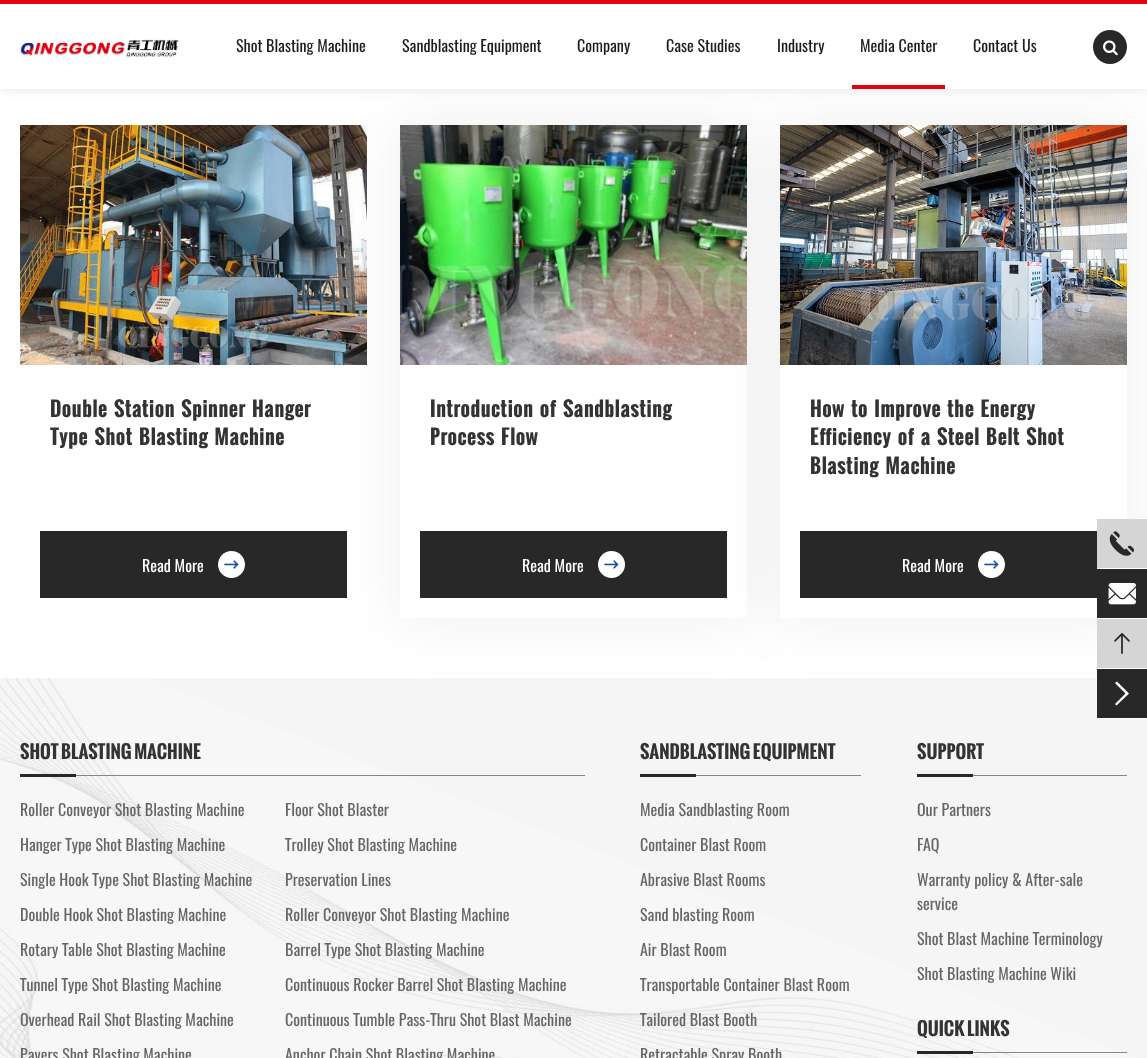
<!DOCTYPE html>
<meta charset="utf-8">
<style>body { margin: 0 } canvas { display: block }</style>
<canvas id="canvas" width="1147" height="1058"></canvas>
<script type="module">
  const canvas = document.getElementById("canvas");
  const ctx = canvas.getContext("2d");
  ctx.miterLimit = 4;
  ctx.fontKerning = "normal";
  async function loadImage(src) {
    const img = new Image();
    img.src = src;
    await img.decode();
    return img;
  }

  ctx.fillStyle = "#ffffff";
  ctx.fillRect(0, 0, 1147, 1058);
  ctx.fillStyle = "rgba(0, 0, 0, 0.1)";
  ctx.filter = "blur(6px)";
  ctx.beginPath();
  ctx.rect(0, 0, 1147, 89);
  ctx.fill();
  ctx.filter = "none";
  ctx.drawImage(await loadImage("img3.png"), 20, 125, 347, 240);
  ctx.fillStyle = "#282828";
  ctx.fillRect(40, 531, 307, 67);
  ctx.drawImage(await loadImage("img10.png"), 0, 678, 1147, 380);
  ctx.fillStyle = "rgba(91, 91, 91, 0.1)";
  ctx.filter = "blur(30px)";
  ctx.beginPath();
  ctx.rect(400, 125, 347, 493);
  ctx.fill();
  ctx.filter = "none";
  ctx.fillStyle = "#ffffff";
  ctx.fillRect(400, 365, 347, 253);
  ctx.drawImage(await loadImage("img5.png"), 400, 125, 347, 240);
  ctx.fillStyle = "#282828";
  ctx.fillRect(420, 531, 307, 67);
  ctx.fillStyle = "rgba(91, 91, 91, 0.1)";
  ctx.filter = "blur(30px)";
  ctx.beginPath();
  ctx.rect(780, 125, 347, 493);
  ctx.fill();
  ctx.filter = "none";
  ctx.fillStyle = "#ffffff";
  ctx.fillRect(0, 4, 1147, 85);
  ctx.fillStyle = "#e20311";
  ctx.fillRect(0, 0, 1147, 4);
  ctx.drawImage(await loadImage("img1.png"), 20, 39, 159, 18);
  ctx.font = "16px Oswald";
  ctx.fillStyle = "#1d1d1d";
  ctx.fillText("Shot Blasting Machine", 236, 52);
  ctx.fillText("Sandblasting Equipment", 402, 52);
  ctx.fillText("Company", 577, 52);
  ctx.fillText("Case Studies", 666, 52);
  ctx.fillText("Industry", 777, 52);
  ctx.fillText("Media Center", 860, 52);
  ctx.fillStyle = "#e20311";
  ctx.fillRect(852, 85, 93, 4);
  ctx.fillStyle = "#1d1d1d";
  ctx.fillText("Contact Us", 973, 52);
  ctx.fillStyle = "#282828";
  ctx.beginPath();
  ctx.arc(1110, 47, 17, 0, Math.PI * 2);
  ctx.fill();
  ctx.drawImage(await loadImage("img2.png"), 1103, 40, 15, 16);
  ctx.letterSpacing = "0.5px";
  ctx.wordSpacing = "3px";
  ctx.font = "bold 20px Oswald";
  ctx.fillStyle = "#333333";
  ctx.fillText("Double Station Spinner Hanger", 50, 417);
  ctx.fillText("Type Shot Blasting Machine", 50, 445);
  ctx.letterSpacing = "0px";
  ctx.wordSpacing = "0px";
  ctx.font = "16px Oswald";
  ctx.fillStyle = "#ffffff";
  ctx.fillText("Read More", 142, 572);
  ctx.beginPath();
  ctx.arc(231.5, 564.5, 13.5, 0, Math.PI * 2);
  ctx.fill();
  ctx.drawImage(await loadImage("img4.png"), 224, 560, 15, 9);
  ctx.letterSpacing = "0.5px";
  ctx.wordSpacing = "3px";
  ctx.font = "bold 20px Oswald";
  ctx.fillStyle = "#333333";
  ctx.fillText("Introduction of Sandblasting", 430, 417);
  ctx.fillText("Process Flow", 430, 445);
  ctx.letterSpacing = "0px";
  ctx.wordSpacing = "0px";
  ctx.font = "16px Oswald";
  ctx.fillStyle = "#ffffff";
  ctx.fillText("Read More", 522, 572);
  ctx.beginPath();
  ctx.arc(611.5, 564.5, 13.5, 0, Math.PI * 2);
  ctx.fill();
  ctx.drawImage(await loadImage("img4.png"), 604, 560, 15, 9);
  ctx.fillRect(780, 365, 347, 253);
  ctx.drawImage(await loadImage("img6.png"), 780, 125, 347, 240);
  ctx.letterSpacing = "0.5px";
  ctx.wordSpacing = "3px";
  ctx.font = "bold 20px Oswald";
  ctx.fillStyle = "#333333";
  ctx.fillText("How to Improve the Energy", 810, 417);
  ctx.fillText("Efficiency of a Steel Belt Shot", 810, 445);
  ctx.fillText("Blasting Machine", 810, 474);
  ctx.fillStyle = "#282828";
  ctx.fillRect(800, 531, 297, 67);
  ctx.letterSpacing = "0px";
  ctx.wordSpacing = "0px";
  ctx.font = "16px Oswald";
  ctx.fillStyle = "#ffffff";
  ctx.fillText("Read More", 902, 572);
  ctx.beginPath();
  ctx.arc(991.5, 564.5, 13.5, 0, Math.PI * 2);
  ctx.fill();
  ctx.drawImage(await loadImage("img4.png"), 984, 560, 15, 9);
  ctx.fillStyle = "#d5d5d5";
  ctx.fillRect(1097, 519, 50, 49);
  ctx.fillStyle = "#ffffff";
  ctx.fillRect(1127, 568, 20, 1);
  ctx.drawImage(await loadImage("img7.png"), 1109, 531, 26, 25);
  ctx.fillStyle = "#282828";
  ctx.fillRect(1097, 569, 50, 49);
  ctx.fillStyle = "#ffffff";
  ctx.fillRect(1097, 618, 50, 1);
  ctx.drawImage(await loadImage("img8.png"), 1108, 583, 28, 22);
  ctx.fillStyle = "#d5d5d5";
  ctx.fillRect(1097, 619, 50, 49);
  ctx.drawImage(await loadImage("img9.png"), 1114, 633, 16, 21);
  ctx.fillStyle = "#282828";
  ctx.fillRect(1097, 669, 50, 49);
  ctx.fillStyle = "#ffffff";
  ctx.fillRect(1097, 718, 50, 1);
  ctx.beginPath();
  ctx.moveTo(1117, 681.5);
  ctx.lineTo(1115, 683);
  ctx.lineTo(1125.5, 693.5);
  ctx.lineTo(1115, 704);
  ctx.lineTo(1116.5, 705.5);
  ctx.lineTo(1129, 693.5);
  ctx.closePath();
  ctx.fill();
  ctx.fillStyle = "#868686";
  ctx.fillRect(76, 775, 509, 1);
  ctx.font = "bold 18px Oswald";
  ctx.fillStyle = "#333333";
  ctx.fillText("SHOT BLASTING MACHINE", 20, 759);
  ctx.fillStyle = "#282828";
  ctx.fillRect(20, 774, 56, 3);
  ctx.font = "16px Oswald";
  ctx.fillStyle = "#666666";
  ctx.fillText("Roller Conveyor Shot Blasting Machine", 20, 816);
  ctx.fillText("Floor Shot Blaster", 285, 816);
  ctx.fillText("Hanger Type Shot Blasting Machine", 20, 851);
  ctx.fillText("Trolley Shot Blasting Machine", 285, 851);
  ctx.fillText("Single Hook Type Shot Blasting Machine", 20, 886);
  ctx.fillText("Preservation Lines", 285, 886);
  ctx.fillText("Double Hook Shot Blasting Machine", 20, 921);
  ctx.fillText("Roller Conveyor Shot Blasting Machine", 285, 921);
  ctx.fillText("Rotary Table Shot Blasting Machine", 20, 956);
  ctx.fillText("Barrel Type Shot Blasting Machine", 285, 956);
  ctx.fillText("Tunnel Type Shot Blasting Machine", 20, 991);
  ctx.fillText("Continuous Rocker Barrel Shot Blasting Machine", 285, 991);
  ctx.fillText("Overhead Rail Shot Blasting Machine", 20, 1026);
  ctx.fillText("Continuous Tumble Pass-Thru Shot Blast Machine", 285, 1026);
  ctx.fillText("Pavers Shot Blasting Machine", 20, 1061);
  ctx.fillText("Anchor Chain Shot Blasting Machine", 285, 1061);
  ctx.fillStyle = "#868686";
  ctx.fillRect(696, 775, 165, 1);
  ctx.font = "bold 18px Oswald";
  ctx.fillStyle = "#333333";
  ctx.fillText("SANDBLASTING EQUIPMENT", 640, 759);
  ctx.fillStyle = "#282828";
  ctx.fillRect(640, 774, 56, 3);
  ctx.font = "16px Oswald";
  ctx.fillStyle = "#666666";
  ctx.fillText("Media Sandblasting Room", 640, 816);
  ctx.fillText("Container Blast Room", 640, 851);
  ctx.fillText("Abrasive Blast Rooms", 640, 886);
  ctx.fillText("Sand blasting Room", 640, 921);
  ctx.fillText("Air Blast Room", 640, 956);
  ctx.fillText("Transportable Container Blast Room", 640, 991);
  ctx.fillText("Tailored Blast Booth", 640, 1026);
  ctx.fillText("Retractable Spray Booth", 640, 1061);
  ctx.fillStyle = "#868686";
  ctx.fillRect(973, 775, 154, 1);
  ctx.font = "bold 18px Oswald";
  ctx.fillStyle = "#333333";
  ctx.fillText("SUPPORT", 917, 759);
  ctx.fillStyle = "#282828";
  ctx.fillRect(917, 774, 56, 3);
  ctx.font = "16px Oswald";
  ctx.fillStyle = "#666666";
  ctx.fillText("Our Partners", 917, 816);
  ctx.fillText("FAQ", 917, 851);
  ctx.fillText("Warranty policy & After-sale", 917, 886);
  ctx.fillText("service", 917, 910);
  ctx.fillText("Shot Blast Machine Terminology", 917, 945);
  ctx.fillText("Shot Blasting Machine Wiki", 917, 980);
  ctx.fillStyle = "#868686";
  ctx.fillRect(973, 1052, 154, 1);
  ctx.font = "bold 18px Oswald";
  ctx.fillStyle = "#333333";
  ctx.fillText("QUICK LINKS", 917, 1036);
  ctx.fillStyle = "#282828";
  ctx.fillRect(917, 1051, 56, 3);
</script>
